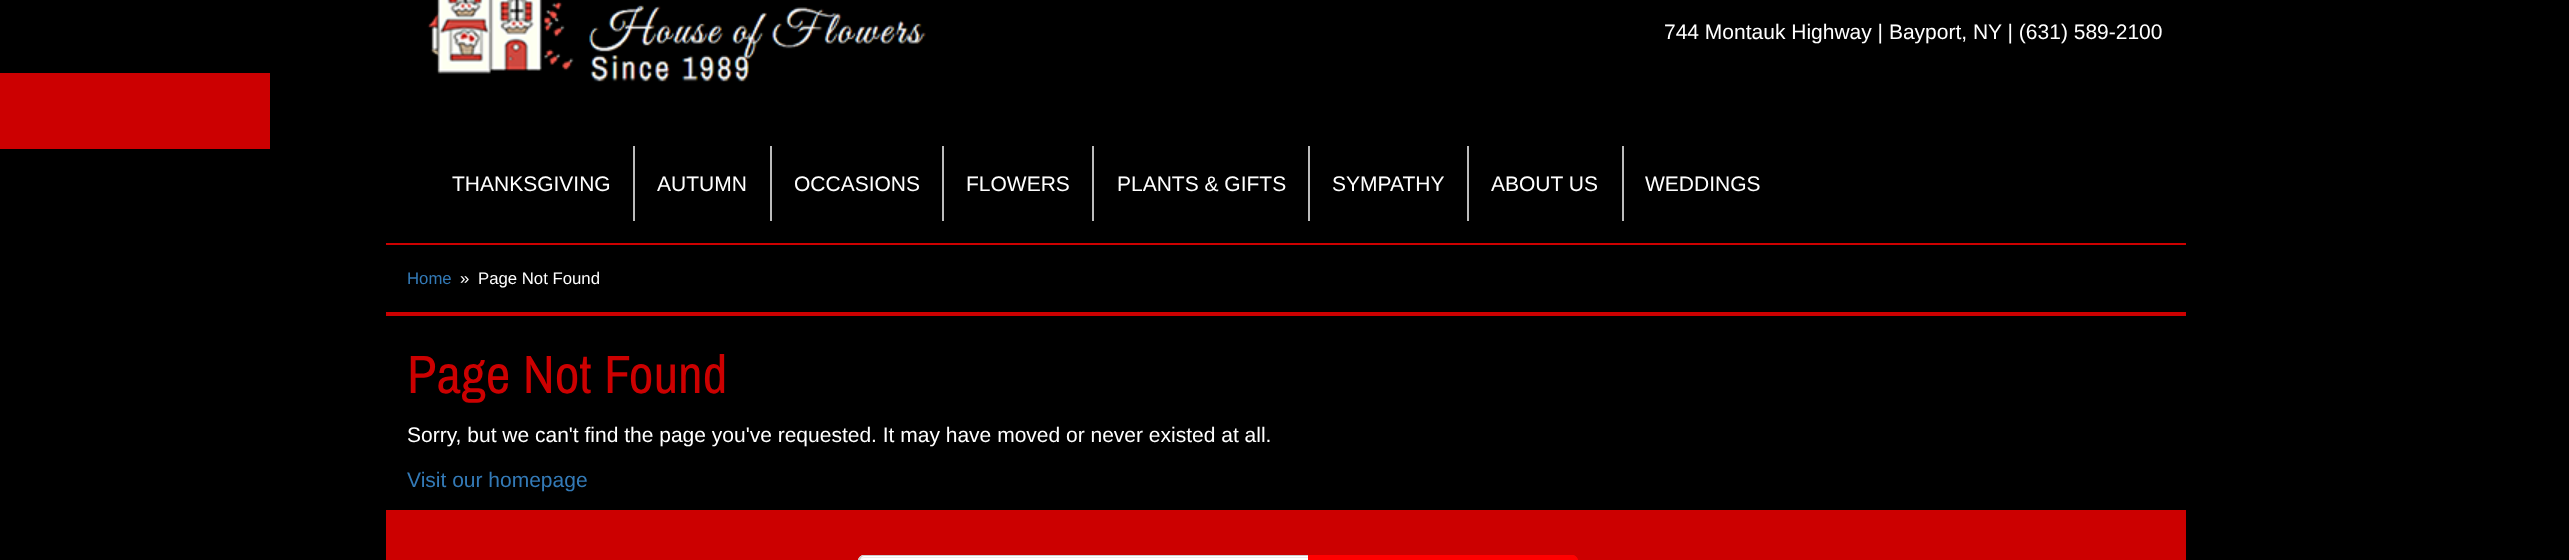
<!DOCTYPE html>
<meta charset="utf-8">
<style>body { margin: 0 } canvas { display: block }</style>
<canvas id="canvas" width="2569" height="560"></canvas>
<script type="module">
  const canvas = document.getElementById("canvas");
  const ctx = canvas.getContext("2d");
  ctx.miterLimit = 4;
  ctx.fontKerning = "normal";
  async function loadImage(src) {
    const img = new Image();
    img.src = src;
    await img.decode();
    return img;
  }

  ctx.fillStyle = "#000000";
  ctx.fillRect(0, 0, 2569, 560);
  ctx.fillStyle = "#cc0001";
  ctx.fillRect(0, 73, 270, 76);
  ctx.drawImage(await loadImage("img1.png"), 427, 0, 499, 82);
  ctx.font = "21px Liberation Sans";
  ctx.fillStyle = "#ffffff";
  ctx.fillText("744 Montauk Highway | Bayport, NY | (631) 589-2100", 1664, 39);
  ctx.fillStyle = "#bbbbbb";
  ctx.fillRect(633, 146, 2, 75);
  ctx.fillStyle = "#ffffff";
  ctx.fillText("THANKSGIVING", 452, 191);
  ctx.fillStyle = "#bbbbbb";
  ctx.fillRect(770, 146, 2, 75);
  ctx.fillStyle = "#ffffff";
  ctx.fillText("AUTUMN", 657, 191);
  ctx.fillStyle = "#bbbbbb";
  ctx.fillRect(942, 146, 2, 75);
  ctx.fillStyle = "#ffffff";
  ctx.fillText("OCCASIONS", 794, 191);
  ctx.fillStyle = "#bbbbbb";
  ctx.fillRect(1092, 146, 2, 75);
  ctx.fillStyle = "#ffffff";
  ctx.fillText("FLOWERS", 966, 191);
  ctx.fillStyle = "#bbbbbb";
  ctx.fillRect(1308, 146, 2, 75);
  ctx.fillStyle = "#ffffff";
  ctx.fillText("PLANTS & GIFTS", 1117, 191);
  ctx.fillStyle = "#bbbbbb";
  ctx.fillRect(1467, 146, 2, 75);
  ctx.fillStyle = "#ffffff";
  ctx.fillText("SYMPATHY", 1332, 191);
  ctx.fillStyle = "#bbbbbb";
  ctx.fillRect(1622, 146, 2, 75);
  ctx.fillStyle = "#ffffff";
  ctx.fillText("ABOUT US", 1491, 191);
  ctx.fillText("WEDDINGS", 1645, 191);
  ctx.fillStyle = "#cc0000";
  ctx.fillRect(386, 243, 1800, 2);
  ctx.fillRect(386, 312, 1800, 4);
  ctx.font = "16.75px Liberation Sans";
  ctx.fillStyle = "#337ab7";
  ctx.fillText("Home", 407, 284);
  ctx.fillStyle = "#ffffff";
  ctx.fillText("»", 460, 284);
  ctx.fillText("Page Not Found", 478, 284);
  ctx.font = "54px Archivo Narrow";
  ctx.fillStyle = "#cc0000";
  ctx.fillText("Page Not Found", 407, 393);
  ctx.font = "21px Liberation Sans";
  ctx.fillStyle = "#ffffff";
  ctx.fillText("Sorry, but we can't find the page you've requested. It may have moved or never existed at all.", 407, 442);
  ctx.fillStyle = "#337ab7";
  ctx.fillText("Visit our homepage", 407, 487);
  ctx.fillStyle = "#cc0000";
  ctx.fillRect(386, 510, 1800, 50);
  ctx.fillStyle = "#ffffff";
  ctx.beginPath();
  ctx.moveTo(864, 555);
  ctx.lineTo(1308, 555);
  ctx.lineTo(1308, 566);
  ctx.lineTo(864, 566);
  ctx.bezierCurveTo(860.5, 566, 858, 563.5, 858, 560);
  ctx.lineTo(858, 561);
  ctx.bezierCurveTo(858, 557.5, 860.5, 555, 864, 555);
  ctx.closePath();
  ctx.fill();
  ctx.fillStyle = "#ececec";
  ctx.beginPath();
  ctx.moveTo(864, 558);
  ctx.lineTo(1308, 558);
  ctx.lineTo(1308, 557);
  ctx.lineTo(865, 557);
  ctx.bezierCurveTo(862, 557, 860, 559, 860, 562);
  ctx.bezierCurveTo(860, 560, 862, 558, 864, 558);
  ctx.closePath();
  ctx.fill();
  ctx.fillStyle = "#cccccc";
  ctx.beginPath();
  ctx.moveTo(864, 555);
  ctx.lineTo(1308, 555);
  ctx.lineTo(1308, 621);
  ctx.lineTo(864, 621);
  ctx.bezierCurveTo(861, 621, 858, 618, 858, 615);
  ctx.lineTo(858, 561);
  ctx.bezierCurveTo(858, 558, 861, 555, 864, 555);
  ctx.closePath();
  ctx.moveTo(864, 556);
  ctx.lineTo(1308, 556);
  ctx.lineTo(1308, 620);
  ctx.lineTo(864, 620);
  ctx.bezierCurveTo(862, 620, 860, 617, 860, 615);
  ctx.lineTo(860, 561);
  ctx.bezierCurveTo(860, 559, 862, 556, 864, 556);
  ctx.closePath();
  ctx.fill("evenodd");
  ctx.fillStyle = "#ff0000";
  ctx.beginPath();
  ctx.moveTo(1308, 555);
  ctx.lineTo(1572, 555);
  ctx.bezierCurveTo(1575.5, 555, 1578, 557.5, 1578, 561);
  ctx.lineTo(1578, 560);
  ctx.bezierCurveTo(1578, 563.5, 1575.5, 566, 1572, 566);
  ctx.lineTo(1308, 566);
  ctx.closePath();
  ctx.fill();
  ctx.beginPath();
  ctx.moveTo(1308, 555);
  ctx.lineTo(1572, 555);
  ctx.bezierCurveTo(1575, 555, 1578, 558, 1578, 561);
  ctx.lineTo(1578, 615);
  ctx.bezierCurveTo(1578, 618, 1575, 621, 1572, 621);
  ctx.lineTo(1308, 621);
  ctx.closePath();
  ctx.moveTo(1308, 556);
  ctx.lineTo(1572, 556);
  ctx.bezierCurveTo(1574, 556, 1576, 559, 1576, 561);
  ctx.lineTo(1576, 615);
  ctx.bezierCurveTo(1576, 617, 1574, 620, 1572, 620);
  ctx.lineTo(1308, 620);
  ctx.closePath();
  ctx.fill("evenodd");
</script>
